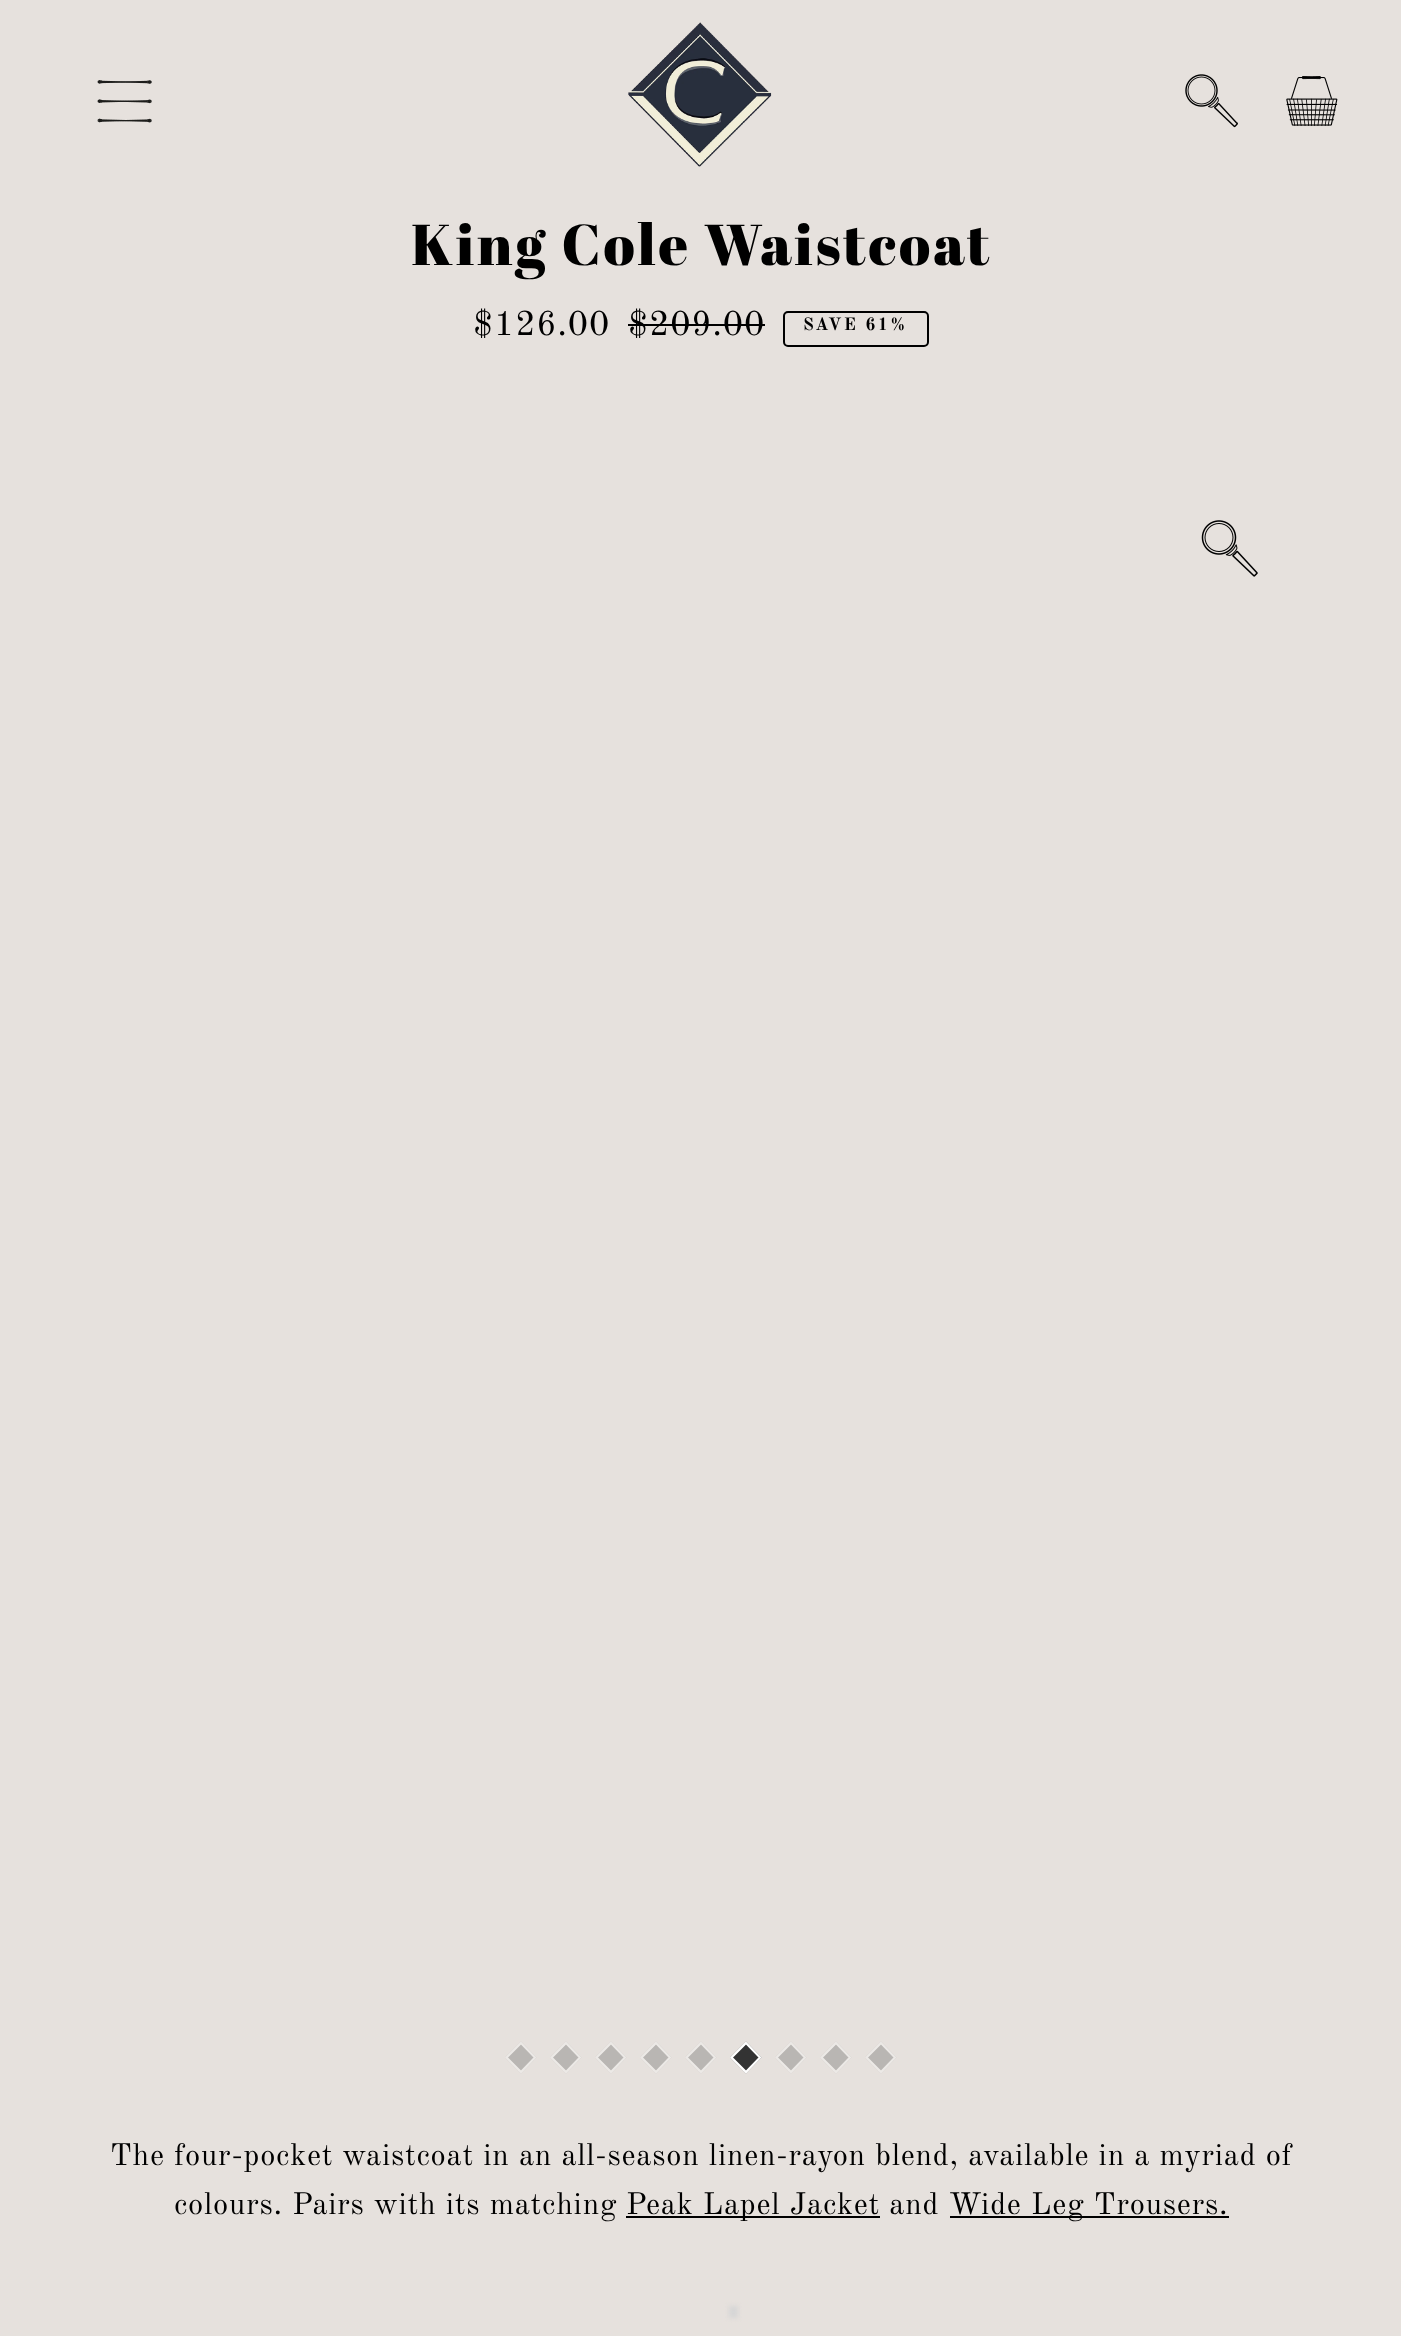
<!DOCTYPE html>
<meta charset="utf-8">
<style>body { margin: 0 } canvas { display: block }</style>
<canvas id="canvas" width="1401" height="2336"></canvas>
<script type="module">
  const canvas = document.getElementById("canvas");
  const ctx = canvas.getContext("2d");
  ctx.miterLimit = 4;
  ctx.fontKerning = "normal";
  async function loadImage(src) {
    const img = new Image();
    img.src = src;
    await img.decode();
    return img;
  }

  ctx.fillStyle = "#e6e1dd";
  ctx.fillRect(0, 0, 1401, 2336);
  ctx.drawImage(await loadImage("img1.png"), 97, 80, 55, 43);
  ctx.drawImage(await loadImage("img2.png"), 628, 22, 144, 145);
  ctx.drawImage(await loadImage("img3.png"), 1185, 74, 53, 54);
  ctx.drawImage(await loadImage("img4.png"), 1286, 76, 52, 50);
  ctx.letterSpacing = "2.9px";
  ctx.font = "57.4px Abril Fatface";
  ctx.fillStyle = "#000000";
  ctx.fillText("King Cole Waistcoat", 411, 265);
  ctx.letterSpacing = "0.77px";
  ctx.font = "35px Old Standard TT";
  ctx.fillText("$126.00", 473, 335);
  ctx.fillText("$209.00", 628, 335);
  ctx.fillRect(628, 324, 137, 2);
  ctx.beginPath();
  ctx.roundRect(784, 312, 144, 34, 4);
  ctx.strokeStyle = "#000000";
  ctx.lineWidth = 2;
  ctx.stroke();
  ctx.letterSpacing = "2.25px";
  ctx.font = "bold 17.5px Old Standard TT";
  ctx.fillText("SAVE 61%", 803, 330);
  ctx.drawImage(await loadImage("img5.png"), 1201, 520, 57, 57);
  ctx.fillStyle = "#b9b6b3";
  ctx.beginPath();
  ctx.moveTo(521, 2041.5);
  ctx.lineTo(536.5, 2057.5);
  ctx.lineTo(521, 2073.5);
  ctx.lineTo(505, 2057.5);
  ctx.closePath();
  ctx.fill();
  ctx.beginPath();
  ctx.moveTo(521, 2043);
  ctx.lineTo(535, 2057.5);
  ctx.lineTo(521, 2072);
  ctx.lineTo(506.5, 2057.5);
  ctx.closePath();
  ctx.strokeStyle = "#ece9e6";
  ctx.lineWidth = 2.3;
  ctx.stroke();
  ctx.beginPath();
  ctx.moveTo(566, 2041.5);
  ctx.lineTo(581.5, 2057.5);
  ctx.lineTo(566, 2073.5);
  ctx.lineTo(550, 2057.5);
  ctx.closePath();
  ctx.fill();
  ctx.beginPath();
  ctx.moveTo(566, 2043);
  ctx.lineTo(580, 2057.5);
  ctx.lineTo(566, 2072);
  ctx.lineTo(551.5, 2057.5);
  ctx.closePath();
  ctx.stroke();
  ctx.beginPath();
  ctx.moveTo(611, 2041.5);
  ctx.lineTo(626.5, 2057.5);
  ctx.lineTo(611, 2073.5);
  ctx.lineTo(595, 2057.5);
  ctx.closePath();
  ctx.fill();
  ctx.beginPath();
  ctx.moveTo(611, 2043);
  ctx.lineTo(625, 2057.5);
  ctx.lineTo(611, 2072);
  ctx.lineTo(596.5, 2057.5);
  ctx.closePath();
  ctx.stroke();
  ctx.beginPath();
  ctx.moveTo(656, 2041.5);
  ctx.lineTo(671.5, 2057.5);
  ctx.lineTo(656, 2073.5);
  ctx.lineTo(640, 2057.5);
  ctx.closePath();
  ctx.fill();
  ctx.beginPath();
  ctx.moveTo(656, 2043);
  ctx.lineTo(670, 2057.5);
  ctx.lineTo(656, 2072);
  ctx.lineTo(641.5, 2057.5);
  ctx.closePath();
  ctx.stroke();
  ctx.beginPath();
  ctx.moveTo(701, 2041.5);
  ctx.lineTo(716.5, 2057.5);
  ctx.lineTo(701, 2073.5);
  ctx.lineTo(685, 2057.5);
  ctx.closePath();
  ctx.fill();
  ctx.beginPath();
  ctx.moveTo(701, 2043);
  ctx.lineTo(715, 2057.5);
  ctx.lineTo(701, 2072);
  ctx.lineTo(686.5, 2057.5);
  ctx.closePath();
  ctx.stroke();
  ctx.fillStyle = "#333333";
  ctx.beginPath();
  ctx.moveTo(746, 2041.5);
  ctx.lineTo(761.5, 2057.5);
  ctx.lineTo(746, 2073.5);
  ctx.lineTo(730, 2057.5);
  ctx.closePath();
  ctx.fill();
  ctx.beginPath();
  ctx.moveTo(746, 2043);
  ctx.lineTo(760, 2057.5);
  ctx.lineTo(746, 2072);
  ctx.lineTo(731.5, 2057.5);
  ctx.closePath();
  ctx.strokeStyle = "#ffffff";
  ctx.stroke();
  ctx.fillStyle = "#b9b6b3";
  ctx.beginPath();
  ctx.moveTo(791, 2041.5);
  ctx.lineTo(806.5, 2057.5);
  ctx.lineTo(791, 2073.5);
  ctx.lineTo(775, 2057.5);
  ctx.closePath();
  ctx.fill();
  ctx.beginPath();
  ctx.moveTo(791, 2043);
  ctx.lineTo(805, 2057.5);
  ctx.lineTo(791, 2072);
  ctx.lineTo(776.5, 2057.5);
  ctx.closePath();
  ctx.strokeStyle = "#ece9e6";
  ctx.stroke();
  ctx.beginPath();
  ctx.moveTo(836, 2041.5);
  ctx.lineTo(851.5, 2057.5);
  ctx.lineTo(836, 2073.5);
  ctx.lineTo(820, 2057.5);
  ctx.closePath();
  ctx.fill();
  ctx.beginPath();
  ctx.moveTo(836, 2043);
  ctx.lineTo(850, 2057.5);
  ctx.lineTo(836, 2072);
  ctx.lineTo(821.5, 2057.5);
  ctx.closePath();
  ctx.stroke();
  ctx.beginPath();
  ctx.moveTo(881, 2041.5);
  ctx.lineTo(896.5, 2057.5);
  ctx.lineTo(881, 2073.5);
  ctx.lineTo(865, 2057.5);
  ctx.closePath();
  ctx.fill();
  ctx.beginPath();
  ctx.moveTo(881, 2043);
  ctx.lineTo(895, 2057.5);
  ctx.lineTo(881, 2072);
  ctx.lineTo(866.5, 2057.5);
  ctx.closePath();
  ctx.stroke();
  ctx.letterSpacing = "0.77px";
  ctx.font = "30.6px Old Standard TT";
  ctx.fillStyle = "#000000";
  ctx.fillText("The four-pocket waistcoat in an all-season linen-rayon blend, available in a myriad of", 110, 2165);
  ctx.fillText("colours. Pairs with its matching", 174, 2214);
  ctx.fillRect(626, 2216, 254, 2);
  ctx.fillText("Peak Lapel Jacket and", 626, 2214);
  ctx.fillRect(950, 2216, 279, 2);
  ctx.fillText("Wide Leg Trousers.", 949, 2214);
  ctx.fillStyle = "#d6d6d6";
  ctx.filter = "blur(2px)";
  ctx.beginPath();
  ctx.rect(729, 2306, 9, 12);
  ctx.fill();
  ctx.filter = "none";
</script>
